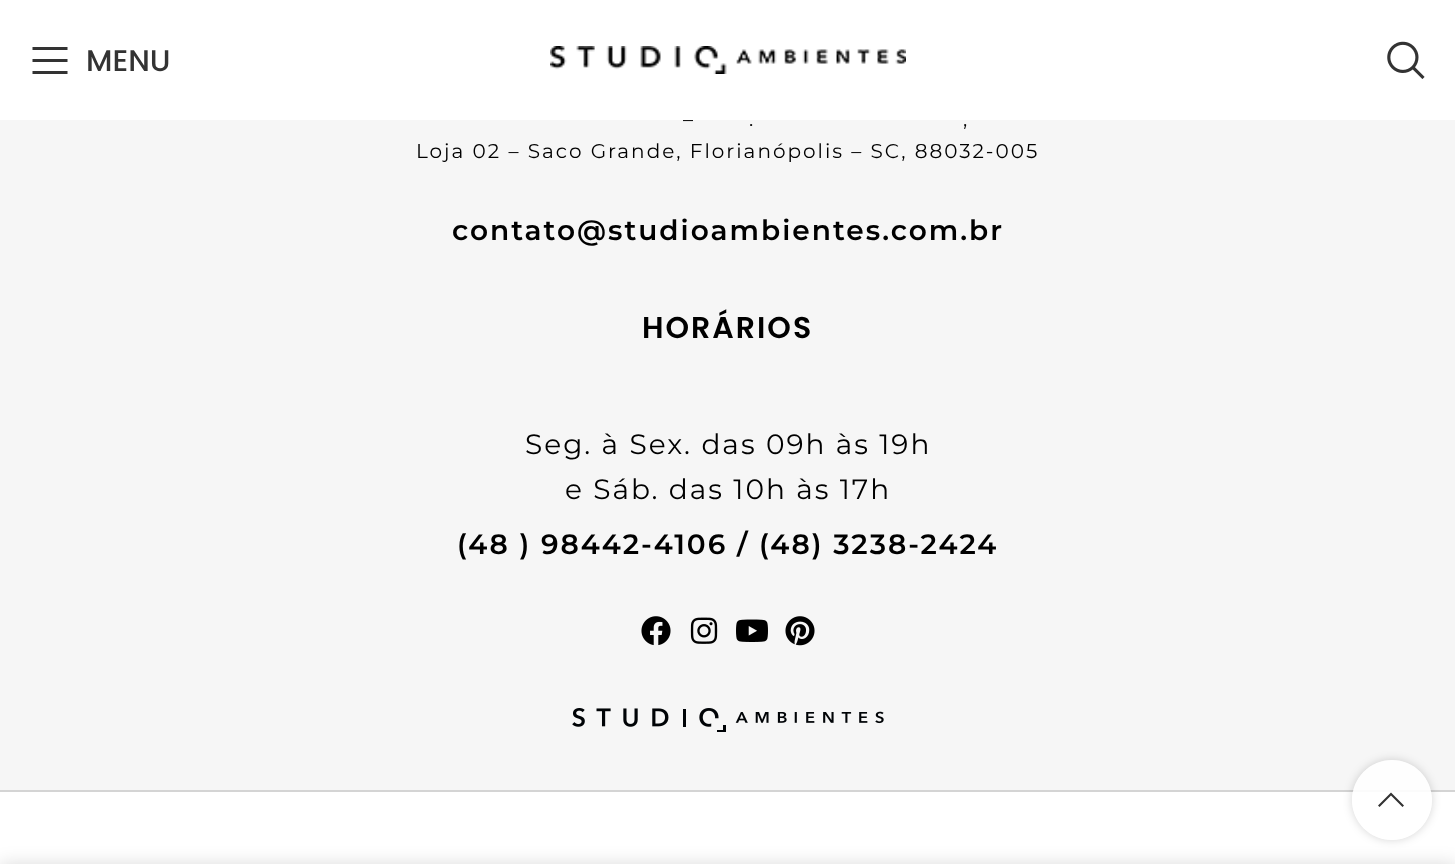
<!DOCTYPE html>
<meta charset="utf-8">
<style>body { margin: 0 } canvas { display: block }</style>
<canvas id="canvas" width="1455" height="864"></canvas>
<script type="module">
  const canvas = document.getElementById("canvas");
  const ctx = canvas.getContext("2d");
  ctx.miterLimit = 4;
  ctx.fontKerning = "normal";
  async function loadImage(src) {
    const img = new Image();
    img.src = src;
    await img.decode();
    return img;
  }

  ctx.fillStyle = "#ffffff";
  ctx.fillRect(0, 0, 1455, 864);
  ctx.fillStyle = "#333333";
  ctx.beginPath();
  ctx.moveTo(32.5, 50);
  ctx.lineTo(67.5, 50);
  ctx.lineTo(67.5, 47);
  ctx.lineTo(32.5, 47);
  ctx.closePath();
  ctx.moveTo(32.5, 62);
  ctx.lineTo(67.5, 62);
  ctx.lineTo(67.5, 59);
  ctx.lineTo(32.5, 59);
  ctx.closePath();
  ctx.moveTo(32.5, 74);
  ctx.lineTo(67.5, 74);
  ctx.lineTo(67.5, 71);
  ctx.lineTo(32.5, 71);
  ctx.closePath();
  ctx.fill();
  ctx.font = "500 30px Poppins";
  ctx.fillText("MENU", 86, 71);
  ctx.drawImage(await loadImage("img1.png"), 550, 46, 356, 28);
  ctx.drawImage(await loadImage("img2.png"), 1387, 41, 38, 38);
  ctx.fillStyle = "#f6f6f6";
  ctx.fillRect(0, 120, 1455, 670);
  ctx.letterSpacing = "2px";
  ctx.font = "20px Montserrat";
  ctx.fillStyle = "#000000";
  ctx.fillText("–", 683, 126);
  ctx.fillText(".", 749, 126);
  ctx.fillText(",", 963, 126);
  ctx.fillText("Loja 02 – Saco Grande, Florianópolis – SC, 88032-005", 416, 158);
  ctx.font = "600 28px Montserrat";
  ctx.fillText("contato@studioambientes.com.br", 452, 240);
  ctx.font = "600 30px Poppins";
  ctx.fillText("HORÁRIOS", 642, 338);
  ctx.font = "28px Montserrat";
  ctx.fillText("Seg. à Sex. das 09h às 19h", 525, 454);
  ctx.fillText("e Sáb. das 10h às 17h", 565, 499);
  ctx.font = "600 28px Montserrat";
  ctx.fillText("(48 ) 98442-4106 / (48) 3238-2424", 457, 554);
  ctx.drawImage(await loadImage("img3.png"), 641, 616, 30, 30);
  ctx.drawImage(await loadImage("img4.png"), 690, 617, 28, 27);
  ctx.drawImage(await loadImage("img5.png"), 736, 619, 32, 23);
  ctx.drawImage(await loadImage("img6.png"), 785, 616, 30, 30);
  ctx.drawImage(await loadImage("img7.png"), 572, 708, 312, 24);
  ctx.fillStyle = "#d4d4d4";
  ctx.fillRect(0, 790, 1455, 2);
  ctx.save();
  ctx.beginPath();
  ctx.moveTo(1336, 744);
  ctx.lineTo(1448, 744);
  ctx.lineTo(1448, 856);
  ctx.lineTo(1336, 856);
  ctx.closePath();
  ctx.moveTo(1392, 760);
  ctx.bezierCurveTo(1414, 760, 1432, 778, 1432, 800);
  ctx.bezierCurveTo(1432, 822, 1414, 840, 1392, 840);
  ctx.bezierCurveTo(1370, 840, 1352, 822, 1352, 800);
  ctx.bezierCurveTo(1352, 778, 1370, 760, 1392, 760);
  ctx.closePath();
  ctx.clip("evenodd");
  ctx.fillStyle = "rgba(0, 0, 0, 0.17)";
  ctx.filter = "blur(5px)";
  ctx.beginPath();
  ctx.roundRect(1352, 760, 80, 80, 40);
  ctx.fill();
  ctx.filter = "none";
  ctx.restore();
  ctx.fillStyle = "rgba(255, 255, 255, 0.9)";
  ctx.beginPath();
  ctx.arc(1392, 800, 40, 0, Math.PI * 2);
  ctx.fill();
  ctx.fillStyle = "#333333";
  ctx.beginPath();
  ctx.moveTo(1402.5, 807);
  ctx.lineTo(1404, 805.5);
  ctx.lineTo(1391, 792.5);
  ctx.lineTo(1378, 805.5);
  ctx.lineTo(1379.5, 807);
  ctx.lineTo(1391, 795.5);
  ctx.closePath();
  ctx.fill();
  ctx.fillStyle = "rgba(0, 0, 0, 0.14)";
  ctx.filter = "blur(9px)";
  ctx.beginPath();
  ctx.rect(0, 864, 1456, 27);
  ctx.fill();
  ctx.filter = "none";
</script>
